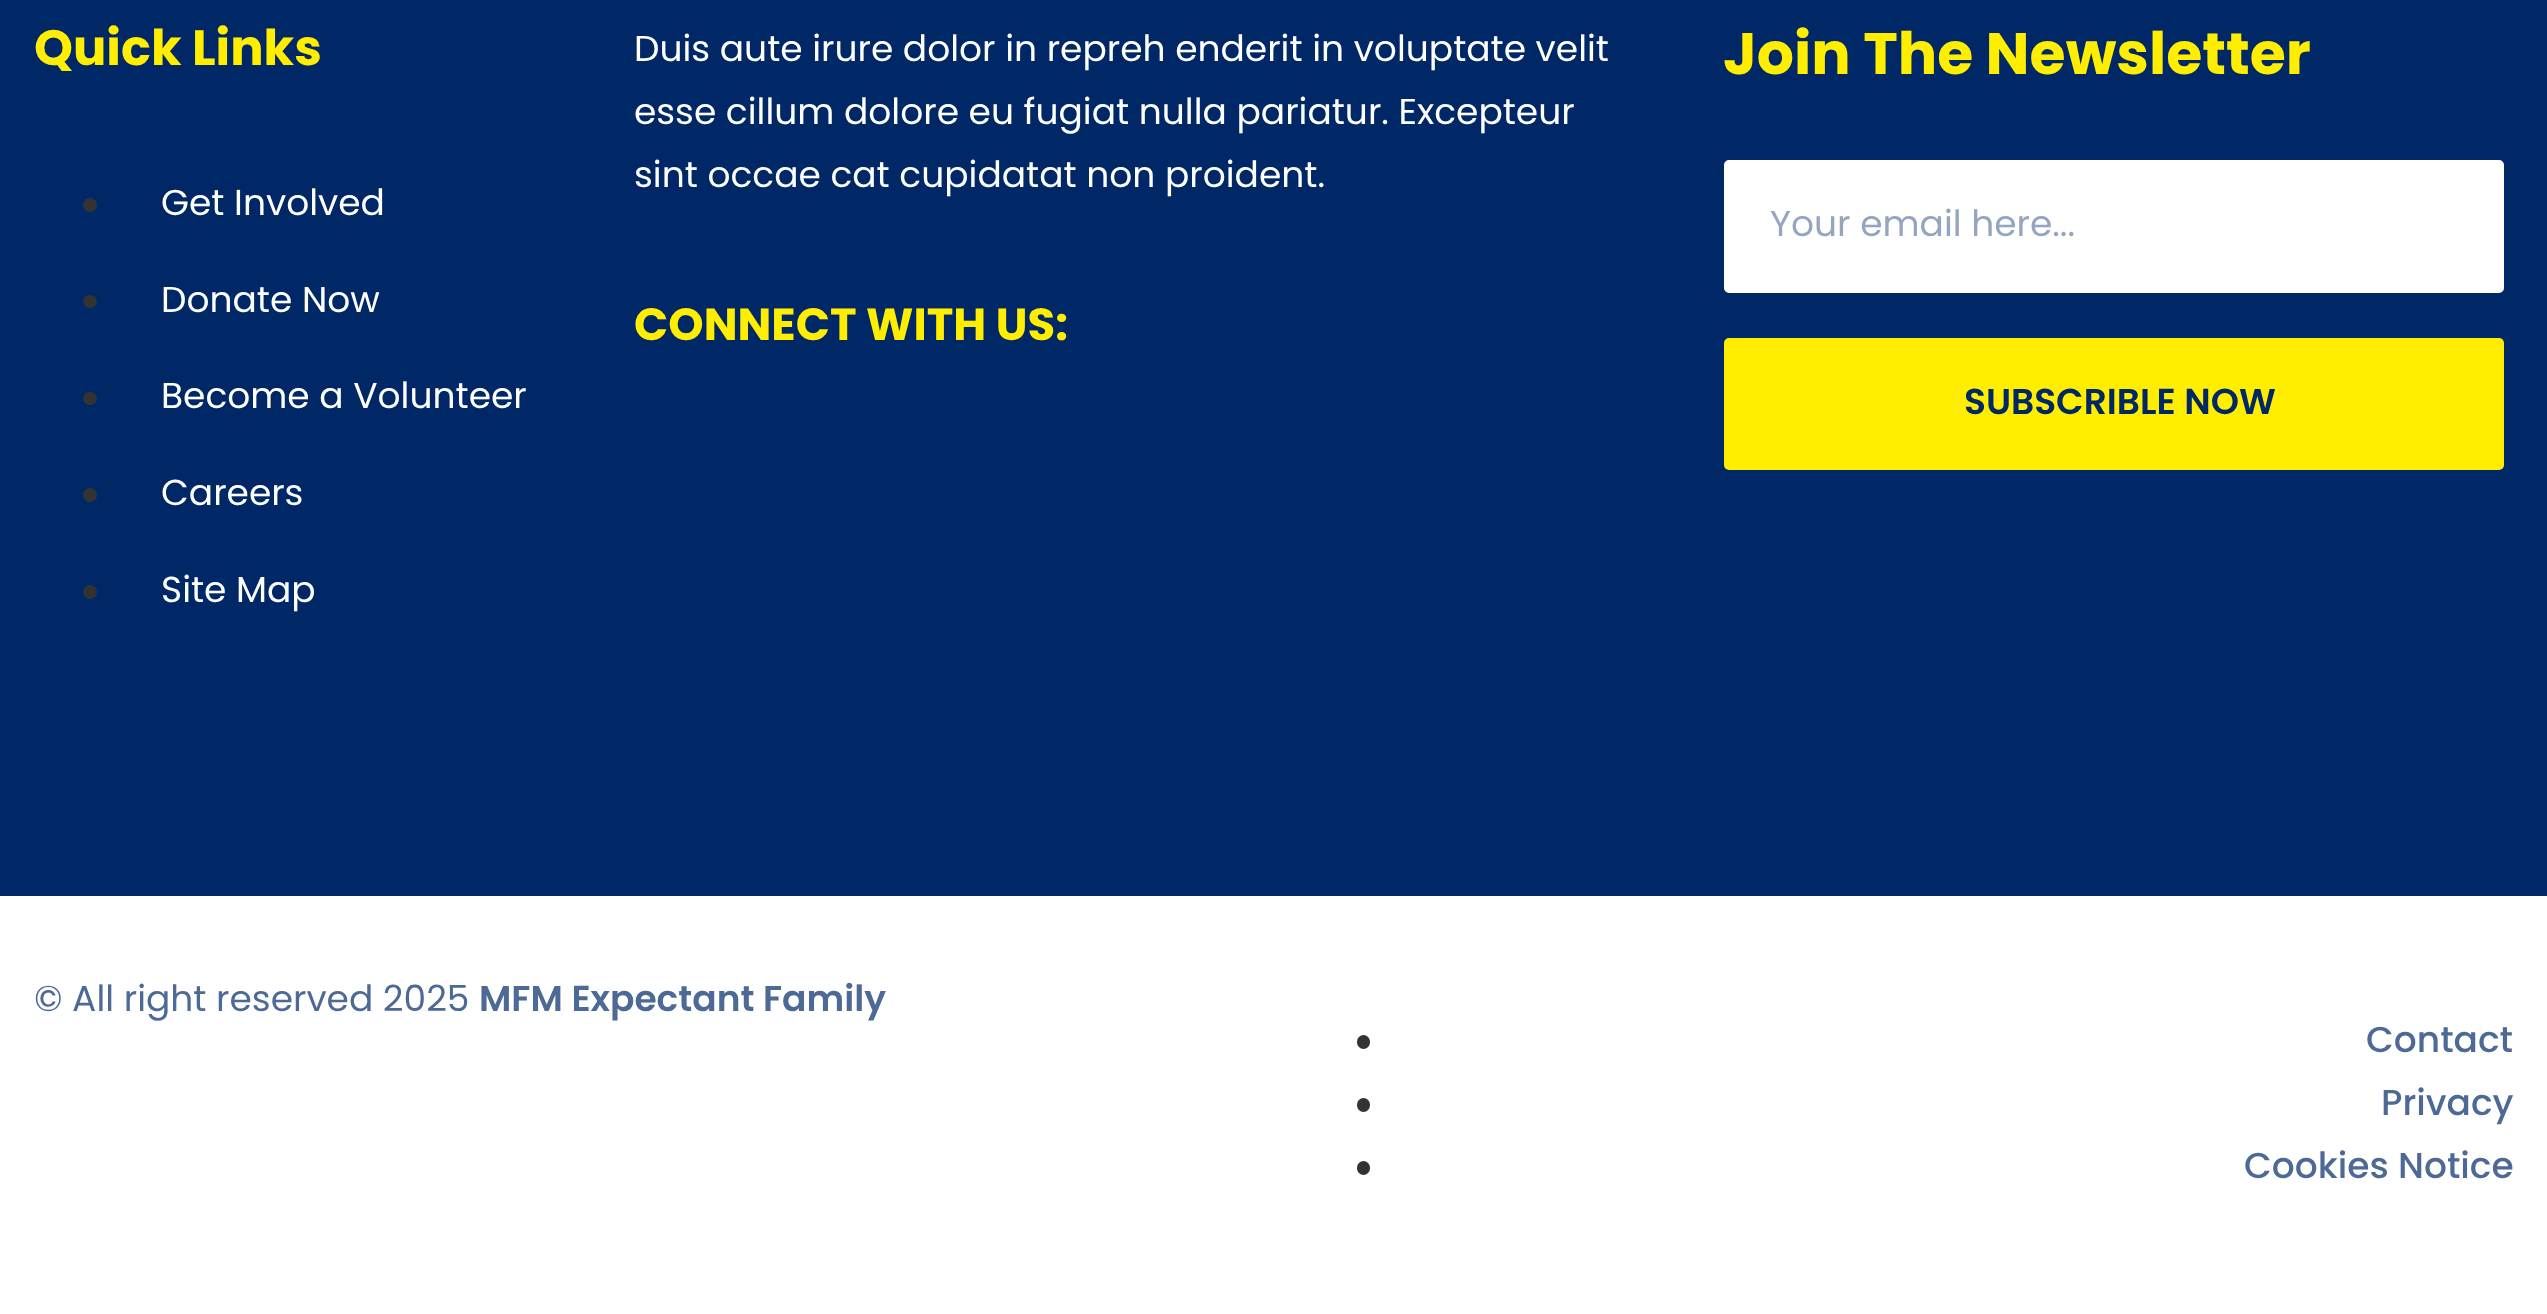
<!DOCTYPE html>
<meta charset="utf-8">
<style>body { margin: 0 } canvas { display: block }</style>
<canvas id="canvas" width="2547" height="1314"></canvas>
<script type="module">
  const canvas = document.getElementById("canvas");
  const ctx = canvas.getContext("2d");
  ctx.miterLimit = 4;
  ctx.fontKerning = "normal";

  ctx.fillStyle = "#ffffff";
  ctx.fillRect(0, 0, 2547, 1314);
  ctx.fillStyle = "#002866";
  ctx.fillRect(0, 0, 2547, 896);
  ctx.font = "bold 49.5px Poppins";
  ctx.fillStyle = "#ffee00";
  ctx.fillText("Quick Links", 34, 65);
  ctx.fillStyle = "#333333";
  ctx.beginPath();
  ctx.arc(90, 205, 7, 0, Math.PI * 2);
  ctx.fill();
  ctx.font = "36px Poppins";
  ctx.fillStyle = "#ffffff";
  ctx.fillText("Get Involved", 161, 215);
  ctx.fillStyle = "#333333";
  ctx.beginPath();
  ctx.roundRect(83, 295, 14, 13, 6.5);
  ctx.fill();
  ctx.fillStyle = "#ffffff";
  ctx.fillText("Donate Now", 161, 312);
  ctx.fillStyle = "#333333";
  ctx.beginPath();
  ctx.roundRect(83, 392, 14, 13, 6.5);
  ctx.fill();
  ctx.fillStyle = "#ffffff";
  ctx.fillText("Become a Volunteer", 161, 408);
  ctx.fillStyle = "#333333";
  ctx.beginPath();
  ctx.arc(90, 495, 7, 0, Math.PI * 2);
  ctx.fill();
  ctx.fillStyle = "#ffffff";
  ctx.fillText("Careers", 161, 505);
  ctx.fillStyle = "#333333";
  ctx.beginPath();
  ctx.arc(90, 592, 7, 0, Math.PI * 2);
  ctx.fill();
  ctx.fillStyle = "#ffffff";
  ctx.fillText("Site Map", 161, 602);
  ctx.fillText("Duis aute irure dolor in repreh enderit in voluptate velit", 634, 61);
  ctx.fillText("esse cillum dolore eu fugiat nulla pariatur. Excepteur", 634, 124);
  ctx.fillText("sint occae cat cupidatat non proident.", 634, 187);
  ctx.font = "bold 45px Poppins";
  ctx.fillStyle = "#ffee00";
  ctx.fillText("CONNECT WITH US:", 634, 340);
  ctx.font = "bold 58.5px Poppins";
  ctx.fillText("Join The Newsletter", 1723, 74);
  ctx.fillStyle = "#ffffff";
  ctx.beginPath();
  ctx.roundRect(1725, 161, 778, 131, 4);
  ctx.fill();
  ctx.strokeStyle = "#ffffff";
  ctx.lineWidth = 2;
  ctx.stroke();
  ctx.font = "36px Poppins";
  ctx.fillStyle = "#94a5bf";
  ctx.fillText("Your email here...", 1770, 236);
  ctx.fillStyle = "#ffee00";
  ctx.beginPath();
  ctx.roundRect(1724, 338, 780, 132, 5);
  ctx.fill();
  ctx.font = "600 36px Poppins";
  ctx.fillStyle = "#002866";
  ctx.fillText("SUBSCRIBLE NOW", 1964, 414);
  ctx.font = "36px Poppins";
  ctx.fillStyle = "#4d6995";
  ctx.fillText("© All right reserved 2025", 34, 1011);
  ctx.font = "600 36px Poppins";
  ctx.fillText("MFM Expectant Family", 479, 1011);
  ctx.fillStyle = "#333333";
  ctx.beginPath();
  ctx.roundRect(1357, 1035, 13, 14, 6.5);
  ctx.fill();
  ctx.font = "500 36px Poppins";
  ctx.fillStyle = "#4d6995";
  ctx.fillText("Contact", 2366, 1052);
  ctx.fillStyle = "#333333";
  ctx.beginPath();
  ctx.roundRect(1357, 1098, 13, 14, 6.5);
  ctx.fill();
  ctx.fillStyle = "#4d6995";
  ctx.fillText("Privacy", 2381, 1115);
  ctx.fillStyle = "#333333";
  ctx.beginPath();
  ctx.roundRect(1357, 1161, 13, 14, 6.5);
  ctx.fill();
  ctx.fillStyle = "#4d6995";
  ctx.fillText("Cookies Notice", 2244, 1178);
</script>
